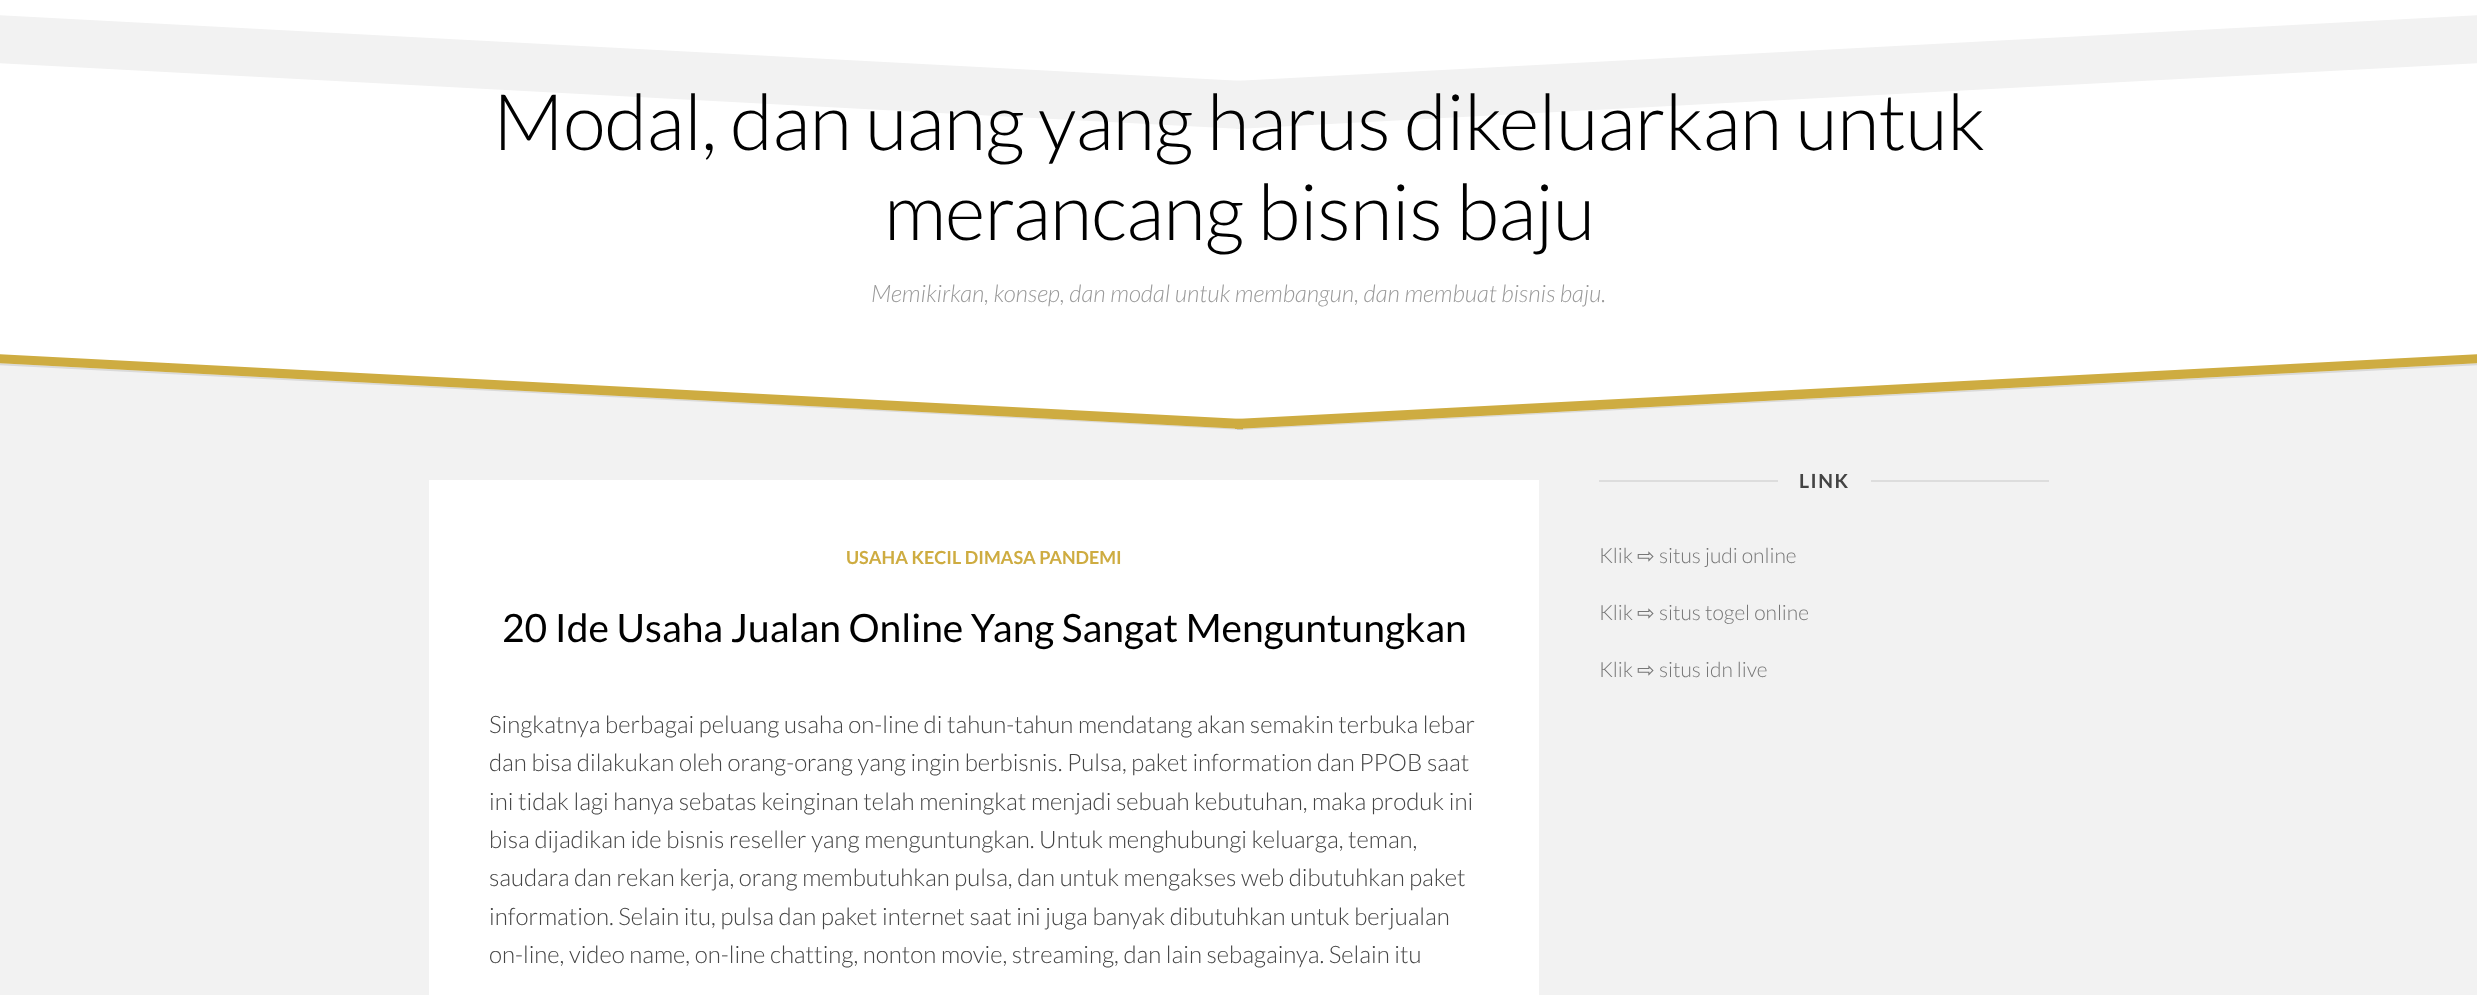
<!DOCTYPE html>
<meta charset="utf-8">
<style>body { margin: 0 } canvas { display: block }</style>
<canvas id="canvas" width="2477" height="995"></canvas>
<script type="module">
  const canvas = document.getElementById("canvas");
  const ctx = canvas.getContext("2d");
  ctx.miterLimit = 4;
  ctx.fontKerning = "normal";

  ctx.fillStyle = "#f2f2f2";
  ctx.fillRect(0, 0, 2477, 995);
  ctx.fillStyle = "#ffffff";
  ctx.fillRect(0, 0, 2477, 354);
  ctx.fillStyle = "#f2f2f2";
  ctx.beginPath();
  ctx.moveTo(-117, 9);
  ctx.lineTo(1244, 81);
  ctx.lineTo(1242, 129);
  ctx.lineTo(-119, 57);
  ctx.closePath();
  ctx.fill();
  ctx.beginPath();
  ctx.moveTo(1234, 81);
  ctx.lineTo(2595, 9);
  ctx.lineTo(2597, 57);
  ctx.lineTo(1236, 129);
  ctx.closePath();
  ctx.fill();
  ctx.letterSpacing = "-0.75px";
  ctx.font = "300 78px Lato";
  ctx.fillStyle = "#000000";
  ctx.fillText("Modal, dan uang yang harus dikeluarkan untuk", 493, 150);
  ctx.fillText("merancang bisnis baju", 884, 240);
  ctx.fillStyle = "#ffffff";
  ctx.beginPath();
  ctx.moveTo(-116, 282);
  ctx.lineTo(1245, 354);
  ctx.lineTo(1241, 426);
  ctx.lineTo(-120, 354);
  ctx.closePath();
  ctx.fill();
  ctx.beginPath();
  ctx.moveTo(1233, 354);
  ctx.lineTo(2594, 282);
  ctx.lineTo(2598, 354);
  ctx.lineTo(1237, 426);
  ctx.closePath();
  ctx.fill();
  ctx.letterSpacing = "0px";
  ctx.font = "italic 300 24px Lato";
  ctx.fillStyle = "#999999";
  ctx.fillText("Memikirkan, konsep, dan modal untuk membangun, dan membuat bisnis baju.", 871, 302);
  ctx.fillStyle = "#dadada";
  ctx.beginPath();
  ctx.moveTo(-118, 349);
  ctx.lineTo(-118, 353);
  ctx.closePath();
  ctx.moveTo(-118, 357);
  ctx.lineTo(-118, 359);
  ctx.lineTo(1243, 430);
  ctx.lineTo(1243, 425);
  ctx.lineTo(1243, 429);
  ctx.closePath();
  ctx.fill("evenodd");
  ctx.fillStyle = "#ceac41";
  ctx.beginPath();
  ctx.moveTo(-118, 348);
  ctx.lineTo(1243, 419);
  ctx.lineTo(1243, 429);
  ctx.lineTo(-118, 357);
  ctx.closePath();
  ctx.fill();
  ctx.fillStyle = "rgba(0, 0, 0, 0.1)";
  ctx.beginPath();
  ctx.moveTo(1237, 429);
  ctx.lineTo(1237, 430);
  ctx.lineTo(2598, 359);
  ctx.lineTo(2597, 349);
  ctx.lineTo(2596, 349);
  ctx.lineTo(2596, 357);
  ctx.closePath();
  ctx.fill();
  ctx.fillStyle = "#ceac41";
  ctx.beginPath();
  ctx.moveTo(1235, 419);
  ctx.lineTo(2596, 348);
  ctx.lineTo(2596, 357);
  ctx.lineTo(1235, 429);
  ctx.closePath();
  ctx.fill();
  ctx.fillStyle = "#ffffff";
  ctx.fillRect(429, 480, 1110, 515);
  ctx.font = "bold 18px Lato";
  ctx.fillStyle = "#ceac41";
  ctx.fillText("USAHA KECIL DIMASA PANDEMI", 846, 564);
  ctx.font = "39px Lato";
  ctx.fillStyle = "#000000";
  ctx.fillText("20 Ide Usaha Jualan Online Yang Sangat Menguntungkan", 502, 642);
  ctx.font = "300 24px Lato";
  ctx.fillStyle = "#444444";
  ctx.fillText("Singkatnya berbagai peluang usaha on-line di tahun-tahun mendatang akan semakin terbuka lebar", 489, 733);
  ctx.fillText("dan bisa dilakukan oleh orang-orang yang ingin berbisnis. Pulsa, paket information dan PPOB saat", 489, 771);
  ctx.fillText("ini tidak lagi hanya sebatas keinginan telah meningkat menjadi sebuah kebutuhan, maka produk ini", 489, 810);
  ctx.fillText("bisa dijadikan ide bisnis reseller yang menguntungkan. Untuk menghubungi keluarga, teman,", 489, 848);
  ctx.fillText("saudara dan rekan kerja, orang membutuhkan pulsa, dan untuk mengakses web dibutuhkan paket", 489, 886);
  ctx.fillText("information. Selain itu, pulsa dan paket internet saat ini juga banyak dibutuhkan untuk berjualan", 489, 925);
  ctx.fillText("on-line, video name, on-line chatting, nonton movie, streaming, dan lain sebagainya. Selain itu", 489, 963);
  ctx.fillStyle = "#dddddd";
  ctx.fillRect(1599, 480, 450, 2);
  ctx.fillStyle = "#f2f2f2";
  ctx.fillRect(1778, 480, 93, 2);
  ctx.letterSpacing = "1.5px";
  ctx.font = "bold 19.5px Lato";
  ctx.fillStyle = "#444444";
  ctx.fillText("LINK", 1799, 488);
  ctx.letterSpacing = "0px";
  ctx.font = "300 21px Lato";
  ctx.fillStyle = "#777777";
  ctx.fillText("Klik", 1599, 563);
  ctx.font = "21px DejaVu Sans";
  ctx.fillText("⇨", 1637, 563);
  ctx.font = "300 21px Lato";
  ctx.fillText("situs judi online", 1659, 563);
  ctx.fillText("Klik", 1599, 620);
  ctx.font = "21px DejaVu Sans";
  ctx.fillText("⇨", 1637, 620);
  ctx.font = "300 21px Lato";
  ctx.fillText("situs togel online", 1659, 620);
  ctx.fillText("Klik", 1599, 677);
  ctx.font = "21px DejaVu Sans";
  ctx.fillText("⇨", 1637, 677);
  ctx.font = "300 21px Lato";
  ctx.fillText("situs idn live", 1659, 677);
</script>
